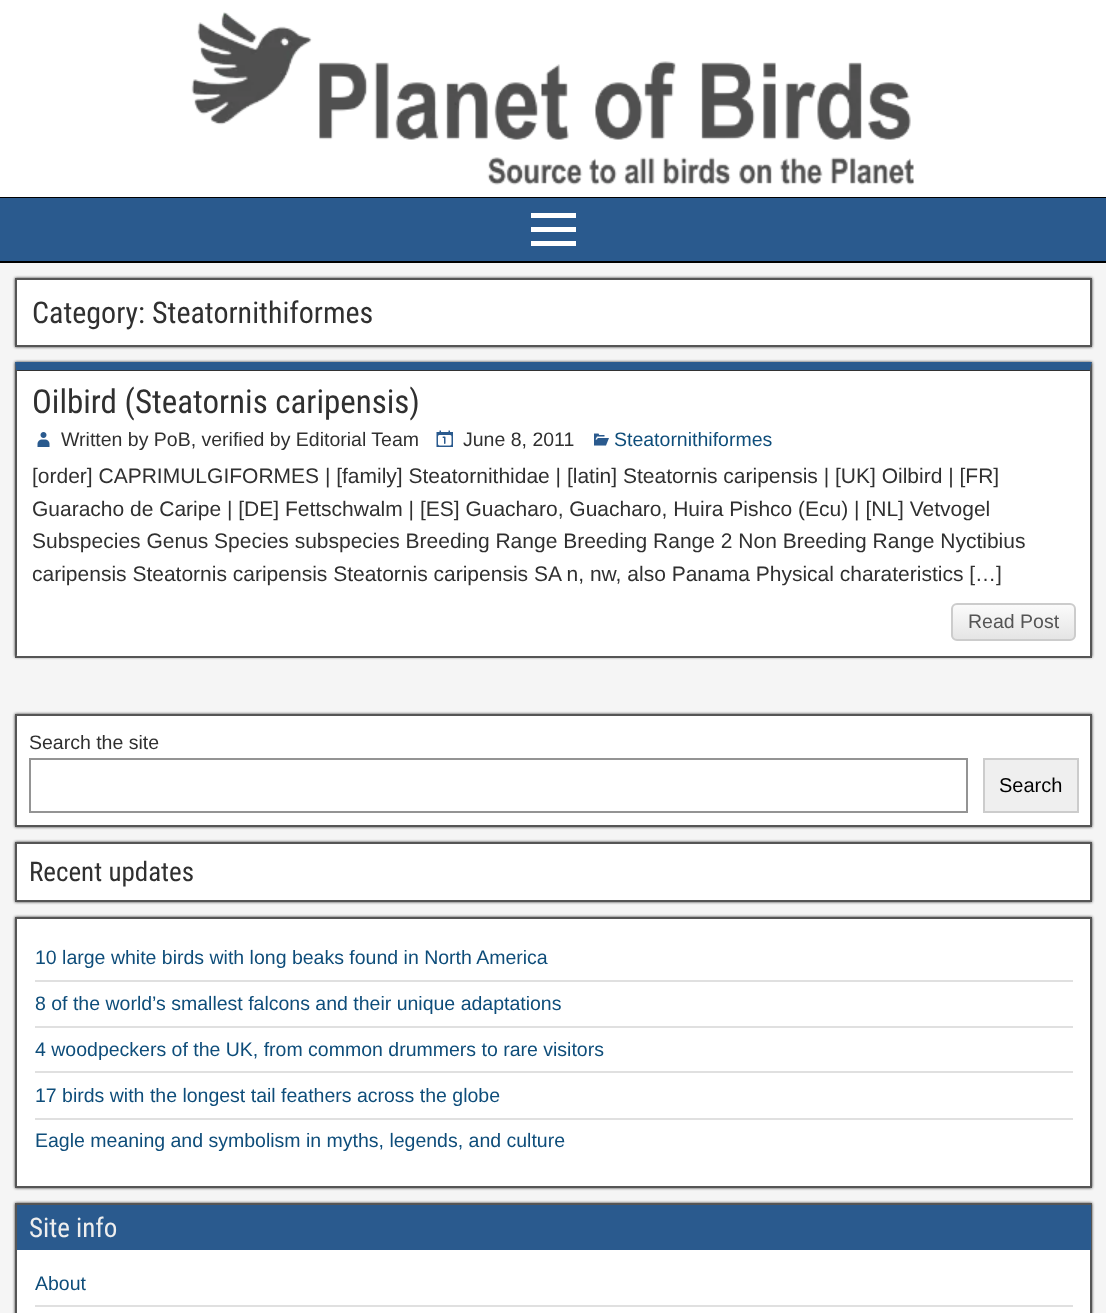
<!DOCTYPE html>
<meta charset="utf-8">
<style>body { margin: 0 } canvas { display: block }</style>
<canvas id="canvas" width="1106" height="1313"></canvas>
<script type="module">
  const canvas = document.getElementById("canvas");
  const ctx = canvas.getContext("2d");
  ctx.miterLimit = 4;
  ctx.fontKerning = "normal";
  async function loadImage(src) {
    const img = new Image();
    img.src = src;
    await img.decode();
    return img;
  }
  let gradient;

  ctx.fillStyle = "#ffffff";
  ctx.fillRect(0, 0, 1106, 1313);
  ctx.fillStyle = "#000000";
  ctx.fillRect(0, 197, 1106, 1);
  ctx.drawImage(await loadImage("img1.png"), 191, 12, 724, 173);
  ctx.fillStyle = "#2a5a8e";
  ctx.fillRect(0, 198, 1106, 63);
  ctx.fillStyle = "#000000";
  ctx.fillRect(0, 261, 1106, 2);
  ctx.fillStyle = "#ffffff";
  ctx.beginPath();
  ctx.moveTo(531, 246);
  ctx.lineTo(531, 241);
  ctx.lineTo(576, 241);
  ctx.lineTo(576, 246);
  ctx.closePath();
  ctx.moveTo(531, 213);
  ctx.lineTo(576, 213);
  ctx.lineTo(576, 218);
  ctx.lineTo(531, 218);
  ctx.closePath();
  ctx.moveTo(531, 232);
  ctx.lineTo(531, 227);
  ctx.lineTo(576, 227);
  ctx.lineTo(576, 232);
  ctx.closePath();
  ctx.fill();
  ctx.fillStyle = "#f5f5f5";
  ctx.fillRect(0, 263, 1106, 1050);
  ctx.fillStyle = "#333333";
  ctx.filter = "blur(1.5px)";
  ctx.beginPath();
  ctx.rect(15, 278, 1077, 69);
  ctx.fill();
  ctx.filter = "none";
  ctx.fillStyle = "#ffffff";
  ctx.beginPath();
  ctx.rect(16, 279, 1075, 67);
  ctx.fill();
  ctx.strokeStyle = "#555555";
  ctx.lineWidth = 2;
  ctx.stroke();
  ctx.font = "30px Roboto Condensed";
  ctx.fillStyle = "#303030";
  ctx.fillText("Category: Steatornithiformes", 32, 323);
  ctx.fillStyle = "#333333";
  ctx.filter = "blur(1.5px)";
  ctx.beginPath();
  ctx.rect(15, 362, 1077, 295);
  ctx.fill();
  ctx.filter = "none";
  ctx.fillStyle = "#ffffff";
  ctx.fillRect(17, 371, 1073, 285);
  ctx.fillStyle = "#2a5a8e";
  ctx.beginPath();
  ctx.moveTo(15, 362);
  ctx.lineTo(1092, 362);
  ctx.lineTo(1090, 370);
  ctx.lineTo(16, 370);
  ctx.closePath();
  ctx.fill();
  ctx.fillStyle = "#555555";
  ctx.beginPath();
  ctx.moveTo(1092, 362);
  ctx.lineTo(1092, 657);
  ctx.lineTo(1090, 656);
  ctx.lineTo(1090, 370);
  ctx.closePath();
  ctx.fill();
  ctx.fillRect(15, 656, 1077, 2);
  ctx.beginPath();
  ctx.moveTo(15, 657);
  ctx.lineTo(15, 362);
  ctx.lineTo(16, 370);
  ctx.lineTo(16, 656);
  ctx.closePath();
  ctx.fill();
  ctx.font = "33px Roboto Condensed";
  ctx.fillStyle = "#303030";
  ctx.fillText("Oilbird (Steatornis caripensis)", 32, 413);
  ctx.drawImage(await loadImage("img2.png"), 37, 432, 13, 15);
  ctx.font = "19.5px Liberation Sans";
  ctx.fillText("Written by PoB, verified by Editorial Team", 61, 446);
  ctx.drawImage(await loadImage("img3.png"), 436, 430, 17, 17);
  ctx.fillText("June 8, 2011", 463, 446);
  ctx.drawImage(await loadImage("img4.png"), 594, 433, 15, 13);
  ctx.fillStyle = "#0e4d7a";
  ctx.fillText("Steatornithiformes", 614, 446);
  ctx.font = "21px Arimo";
  ctx.fillStyle = "#303030";
  ctx.fillText("[order] CAPRIMULGIFORMES | [family] Steatornithidae | [latin] Steatornis caripensis | [UK] Oilbird | [FR]", 32, 483);
  ctx.fillText("Guaracho de Caripe | [DE] Fettschwalm | [ES] Guacharo, Guacharo, Huira Pishco (Ecu) | [NL] Vetvogel", 32, 516);
  ctx.fillText("Subspecies Genus Species subspecies Breeding Range Breeding Range 2 Non Breeding Range Nyctibius", 32, 548);
  ctx.fillText("caripensis Steatornis caripensis Steatornis caripensis SA n, nw, also Panama Physical charateristics […]", 32, 581);
  ctx.save();
  ctx.beginPath();
  ctx.roundRect(951, 603, 125, 38, 6);
  ctx.clip();
  gradient = ctx.createLinearGradient(1013, 605, 1013, 639);
  gradient.addColorStop(0, "#fbfbfb");
  gradient.addColorStop(1, "#e5e5e5");
  ctx.fillStyle = gradient;
  ctx.fillRect(951, 605, 125, 34);
  ctx.restore();
  ctx.beginPath();
  ctx.roundRect(952, 604, 123, 36, 5);
  ctx.strokeStyle = "#cccccc";
  ctx.stroke();
  ctx.font = "19.5px Liberation Sans";
  ctx.fillStyle = "#555555";
  ctx.fillText("Read Post", 968, 628);
  ctx.fillStyle = "#333333";
  ctx.filter = "blur(1.5px)";
  ctx.beginPath();
  ctx.rect(15, 714, 1077, 113);
  ctx.fill();
  ctx.filter = "none";
  ctx.fillStyle = "#ffffff";
  ctx.beginPath();
  ctx.rect(16, 715, 1075, 111);
  ctx.fill();
  ctx.strokeStyle = "#555555";
  ctx.stroke();
  ctx.fillStyle = "#303030";
  ctx.fillText("Search the site", 29, 749);
  ctx.strokeStyle = "#949494";
  ctx.strokeRect(30, 759, 937, 53);
  ctx.fillStyle = "#efefef";
  ctx.beginPath();
  ctx.rect(984, 759, 94, 53);
  ctx.fill();
  ctx.strokeStyle = "#cccccc";
  ctx.stroke();
  ctx.font = "20px Liberation Sans";
  ctx.fillStyle = "#000000";
  ctx.fillText("Search", 999, 792);
  ctx.fillStyle = "#333333";
  ctx.filter = "blur(1.5px)";
  ctx.beginPath();
  ctx.rect(15, 842, 1077, 60);
  ctx.fill();
  ctx.filter = "none";
  ctx.fillStyle = "#ffffff";
  ctx.beginPath();
  ctx.rect(16, 843, 1075, 58);
  ctx.fill();
  ctx.strokeStyle = "#555555";
  ctx.stroke();
  ctx.font = "27px Roboto Condensed";
  ctx.fillStyle = "#303030";
  ctx.fillText("Recent updates", 29, 881);
  ctx.fillStyle = "#333333";
  ctx.filter = "blur(1.5px)";
  ctx.beginPath();
  ctx.rect(15, 917, 1077, 271);
  ctx.fill();
  ctx.filter = "none";
  ctx.fillStyle = "#ffffff";
  ctx.beginPath();
  ctx.rect(16, 918, 1075, 269);
  ctx.fill();
  ctx.stroke();
  ctx.fillStyle = "#e0e0e0";
  ctx.fillRect(35, 980, 1038, 2);
  ctx.font = "19.5px Liberation Sans";
  ctx.fillStyle = "#0e4d7a";
  ctx.fillText("10 large white birds with long beaks found in North America", 35, 964);
  ctx.fillStyle = "#e0e0e0";
  ctx.fillRect(35, 1026, 1038, 2);
  ctx.fillStyle = "#0e4d7a";
  ctx.fillText("8 of the world’s smallest falcons and their unique adaptations", 35, 1010);
  ctx.fillStyle = "#e0e0e0";
  ctx.fillRect(35, 1071, 1038, 2);
  ctx.fillStyle = "#0e4d7a";
  ctx.fillText("4 woodpeckers of the UK, from common drummers to rare visitors", 35, 1056);
  ctx.fillStyle = "#e0e0e0";
  ctx.fillRect(35, 1118, 1038, 2);
  ctx.fillStyle = "#0e4d7a";
  ctx.fillText("17 birds with the longest tail feathers across the globe", 35, 1102);
  ctx.fillText("Eagle meaning and symbolism in myths, legends, and culture", 35, 1147);
  ctx.fillStyle = "#333333";
  ctx.filter = "blur(1.5px)";
  ctx.beginPath();
  ctx.rect(15, 1203, 1077, 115);
  ctx.fill();
  ctx.filter = "none";
  ctx.fillStyle = "#ffffff";
  ctx.fillRect(17, 1250, 1073, 63);
  ctx.strokeRect(16, 1204, 1075, 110);
  ctx.fillStyle = "#2a5a8e";
  ctx.fillRect(17, 1205, 1074, 45);
  ctx.font = "27px Roboto Condensed";
  ctx.fillStyle = "#eeeeee";
  ctx.fillText("Site info", 29, 1237);
  ctx.fillStyle = "#e0e0e0";
  ctx.fillRect(35, 1305, 1038, 2);
  ctx.font = "19.5px Liberation Sans";
  ctx.fillStyle = "#0e4d7a";
  ctx.fillText("About", 35, 1290);
</script>
